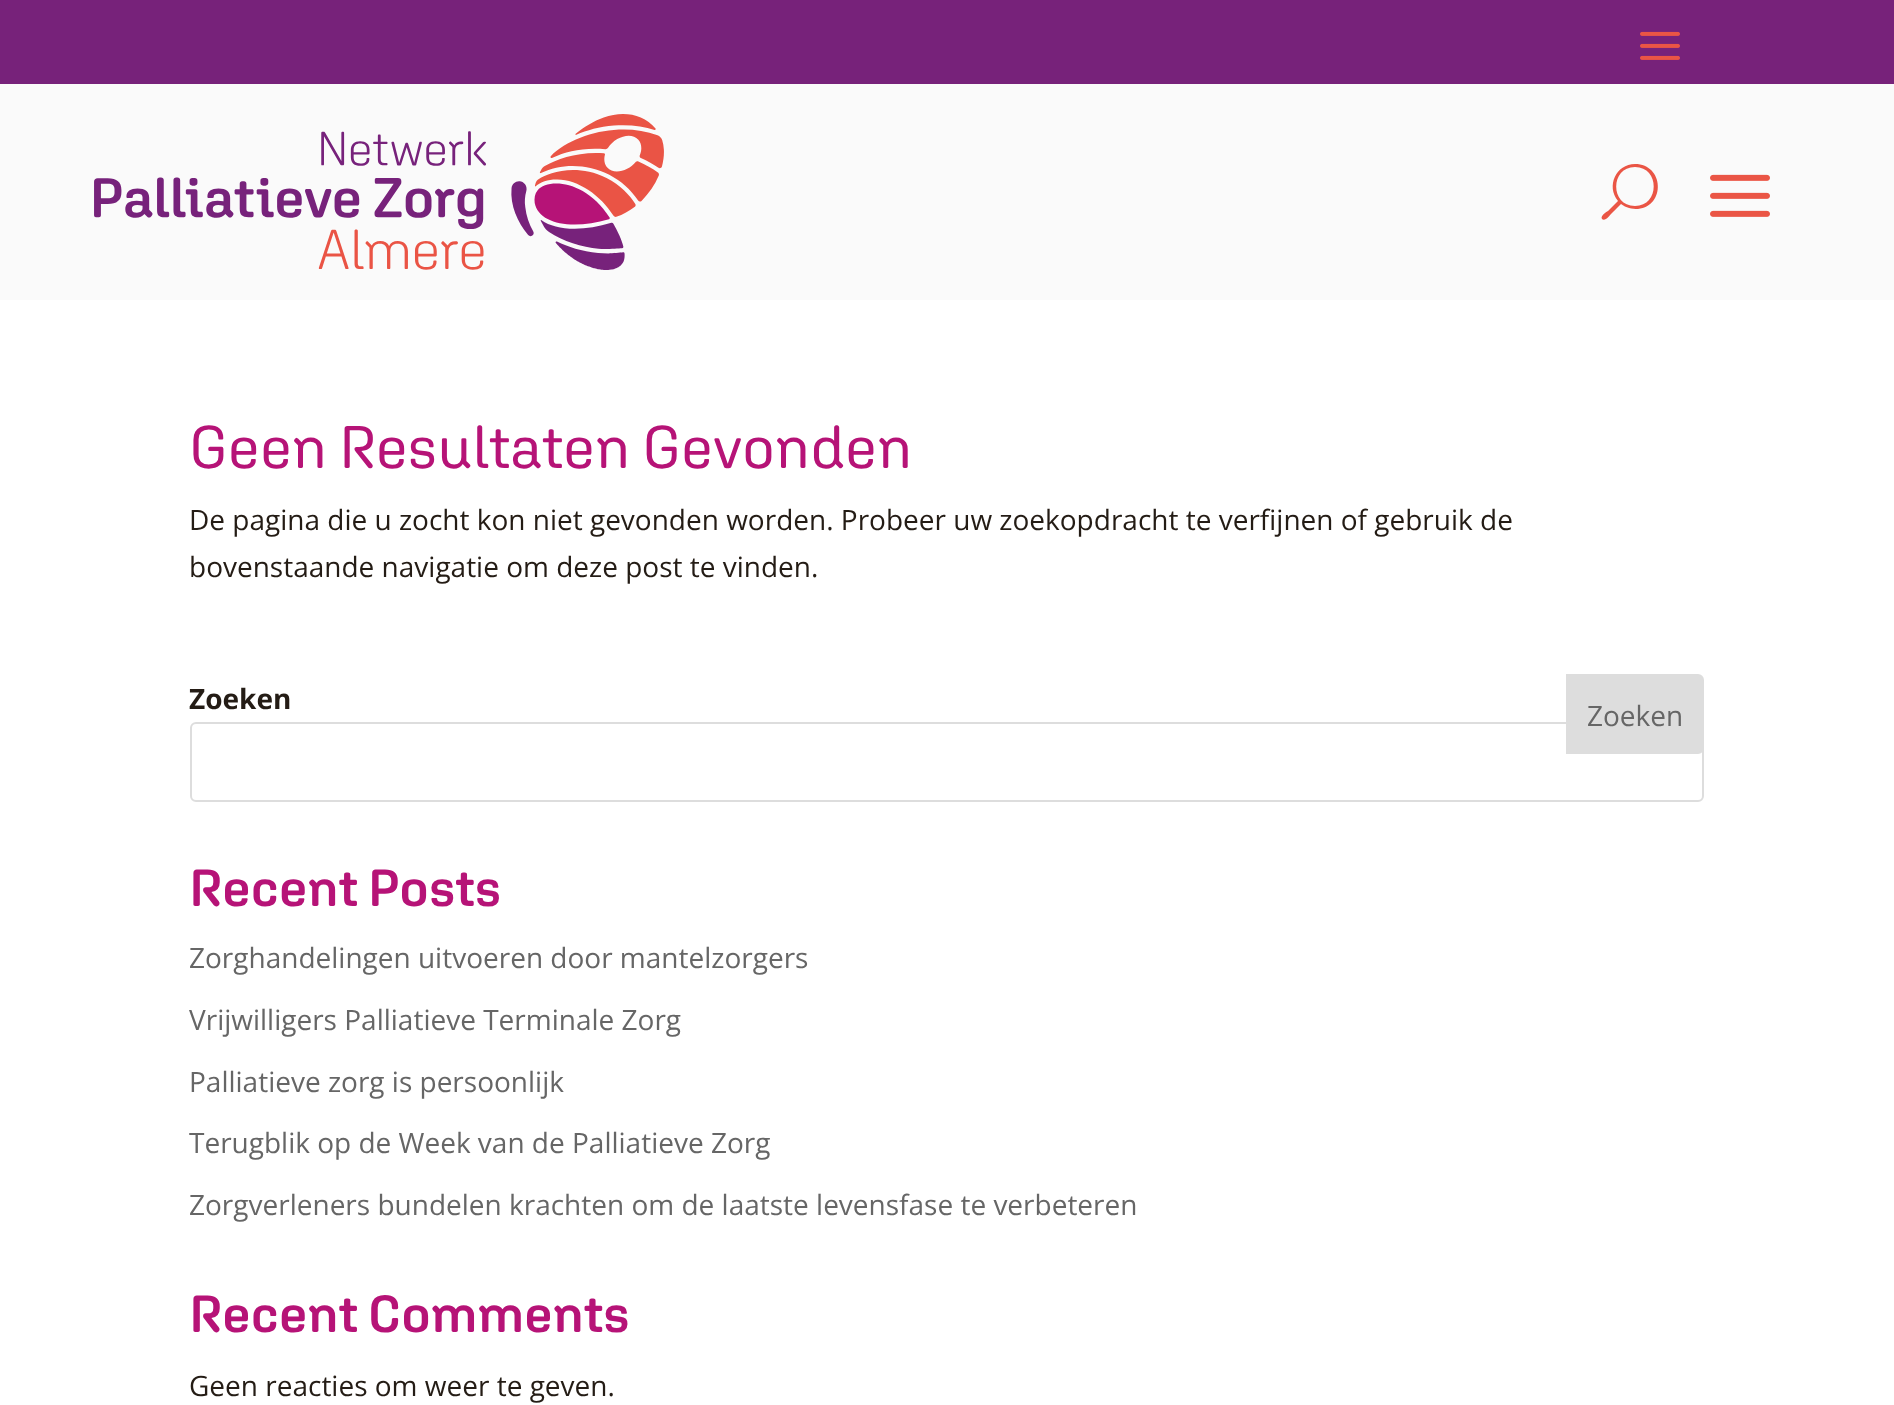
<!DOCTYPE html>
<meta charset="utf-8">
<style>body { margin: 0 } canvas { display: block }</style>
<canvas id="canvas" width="1894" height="1405"></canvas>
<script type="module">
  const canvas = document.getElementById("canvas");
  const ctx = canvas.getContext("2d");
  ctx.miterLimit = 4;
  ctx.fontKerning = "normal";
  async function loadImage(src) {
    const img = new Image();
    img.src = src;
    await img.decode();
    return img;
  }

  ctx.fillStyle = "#fafafa";
  ctx.fillRect(0, 0, 1894, 1405);
  ctx.fillStyle = "#77227a";
  ctx.fillRect(0, 0, 1894, 84);
  ctx.drawImage(await loadImage("img1.png"), 1640, 31, 40, 29);
  ctx.drawImage(await loadImage("img2.png"), 94, 114, 570, 156);
  ctx.fillStyle = "#ea5545";
  ctx.beginPath();
  ctx.moveTo(1635, 164);
  ctx.bezierCurveTo(1616, 164, 1606, 186, 1618, 201);
  ctx.lineTo(1608, 211);
  ctx.bezierCurveTo(1606, 212, 1600, 216, 1602, 219);
  ctx.bezierCurveTo(1605, 222, 1610, 215, 1611, 214);
  ctx.lineTo(1621, 204);
  ctx.bezierCurveTo(1626, 208, 1632, 209, 1638, 209);
  ctx.bezierCurveTo(1666, 206, 1664, 164, 1635, 164);
  ctx.closePath();
  ctx.moveTo(1635, 206);
  ctx.bezierCurveTo(1610, 206, 1610, 167, 1635, 167);
  ctx.bezierCurveTo(1660, 167, 1660, 206, 1635, 206);
  ctx.closePath();
  ctx.fill();
  ctx.drawImage(await loadImage("img3.png"), 1710, 174, 60, 43);
  ctx.fillStyle = "#ffffff";
  ctx.fillRect(0, 300, 1894, 1105);
  ctx.font = "60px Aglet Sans";
  ctx.fillStyle = "#b61377";
  ctx.fillText("Geen Resultaten Gevonden", 189, 468);
  ctx.font = "28px Open Sans";
  ctx.fillStyle = "#241c15";
  ctx.fillText("De pagina die u zocht kon niet gevonden worden. Probeer uw zoekopdracht te verfijnen of gebruik de", 189, 530);
  ctx.fillText("bovenstaande navigatie om deze post te vinden.", 189, 577);
  ctx.font = "bold 28px Open Sans";
  ctx.fillText("Zoeken", 189, 709);
  ctx.beginPath();
  ctx.roundRect(191, 723, 1512, 78, 5);
  ctx.strokeStyle = "#dddddd";
  ctx.lineWidth = 2;
  ctx.stroke();
  ctx.fillStyle = "#dddddd";
  ctx.beginPath();
  ctx.roundRect(1567, 675, 136, 78, [0, 5, 5, 0]);
  ctx.fill();
  ctx.stroke();
  ctx.font = "28px Open Sans";
  ctx.fillStyle = "#666666";
  ctx.fillText("Zoeken", 1587, 726);
  ctx.font = "600 52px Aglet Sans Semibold";
  ctx.fillStyle = "#b61377";
  ctx.fillText("Recent Posts", 189, 906);
  ctx.font = "28px Open Sans";
  ctx.fillStyle = "#666666";
  ctx.fillText("Zorghandelingen uitvoeren door mantelzorgers", 189, 968);
  ctx.fillText("Vrijwilligers Palliatieve Terminale Zorg", 189, 1030);
  ctx.fillText("Palliatieve zorg is persoonlijk", 189, 1092);
  ctx.fillText("Terugblik op de Week van de Palliatieve Zorg", 189, 1153);
  ctx.fillText("Zorgverleners bundelen krachten om de laatste levensfase te verbeteren", 189, 1215);
  ctx.font = "600 52px Aglet Sans Semibold";
  ctx.fillStyle = "#b61377";
  ctx.fillText("Recent Comments", 189, 1332);
  ctx.font = "28px Open Sans";
  ctx.fillStyle = "#241c15";
  ctx.fillText("Geen reacties om weer te geven.", 189, 1396);
</script>
